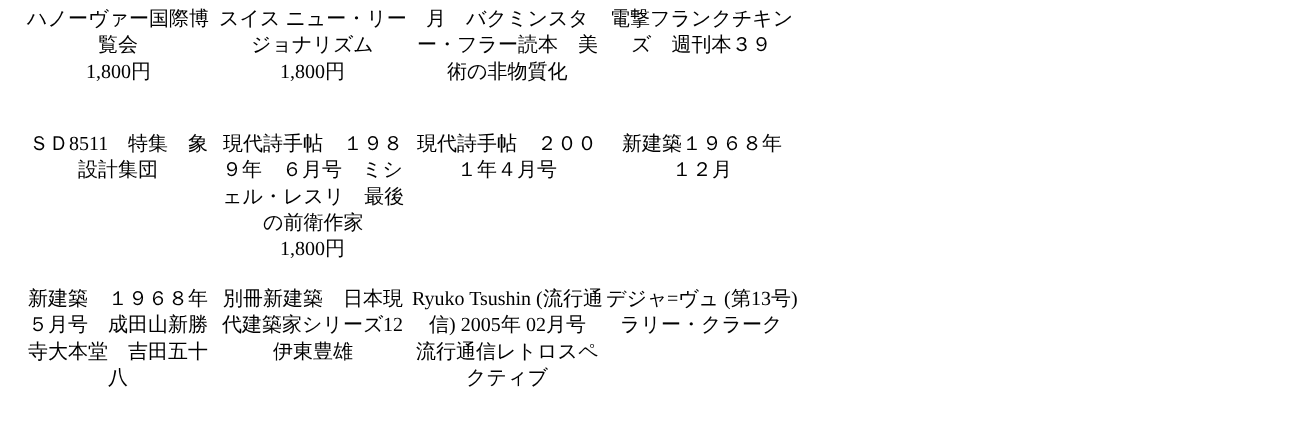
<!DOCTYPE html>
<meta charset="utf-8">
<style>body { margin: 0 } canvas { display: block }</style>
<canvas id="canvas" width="1316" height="434"></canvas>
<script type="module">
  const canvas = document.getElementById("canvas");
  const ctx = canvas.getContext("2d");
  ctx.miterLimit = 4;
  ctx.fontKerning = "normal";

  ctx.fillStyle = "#ffffff";
  ctx.fillRect(0, 0, 1316, 434);
  ctx.font = "500 20px WenQuanYi Zen Hei";
  ctx.fillStyle = "#000000";
  ctx.fillText("ハノーヴァー国際博", 27, 25);
  ctx.fillText("覧会", 98, 51);
  ctx.font = "20px Liberation Serif";
  ctx.fillText("1,800", 86, 78);
  ctx.font = "500 20px WenQuanYi Zen Hei";
  ctx.fillText("円", 131, 78);
  ctx.wordSpacing = "-1px";
  ctx.fillText("スイス ニュー・リー", 219, 25);
  ctx.wordSpacing = "0px";
  ctx.fillText("ジョナリズム", 251, 51);
  ctx.font = "20px Liberation Serif";
  ctx.fillText("1,800", 280, 78);
  ctx.font = "500 20px WenQuanYi Zen Hei";
  ctx.fillText("円", 325, 78);
  ctx.fillText("月　バクミンスタ", 426, 25);
  ctx.fillText("ー・フラー読本　美", 417, 51);
  ctx.fillText("術の非物質化", 447, 78);
  ctx.fillText("電撃フランクチキン", 610, 25);
  ctx.fillText("ズ　週刊本３９", 631, 51);
  ctx.fillText("ＳＤ", 29, 150);
  ctx.font = "20px Liberation Serif";
  ctx.fillText("8511", 69, 150);
  ctx.font = "500 20px WenQuanYi Zen Hei";
  ctx.fillText("特集　象", 128, 150);
  ctx.fillText("設計集団", 78, 176);
  ctx.fillText("現代詩手帖　１９８", 223, 150);
  ctx.fillText("９年　６月号　ミシ", 222, 176);
  ctx.fillText("ェル・レスリ　最後", 222, 203);
  ctx.fillText("の前衛作家", 263, 229);
  ctx.font = "20px Liberation Serif";
  ctx.fillText("1,800", 280, 255);
  ctx.font = "500 20px WenQuanYi Zen Hei";
  ctx.fillText("円", 325, 255);
  ctx.fillText("現代詩手帖　２００", 417, 150);
  ctx.fillText("１年４月号", 457, 176);
  ctx.fillText("新建築１９６８年", 622, 150);
  ctx.fillText("１２月", 672, 176);
  ctx.fillText("新建築　１９６８年", 28, 305);
  ctx.fillText("５月号　成田山新勝", 28, 331);
  ctx.fillText("寺大本堂　吉田五十", 28, 358);
  ctx.fillText("八", 108, 384);
  ctx.fillText("別冊新建築　日本現", 223, 305);
  ctx.fillText("代建築家シリーズ", 222, 331);
  ctx.font = "20px Liberation Serif";
  ctx.fillText("12", 383, 331);
  ctx.font = "500 20px WenQuanYi Zen Hei";
  ctx.fillText("伊東豊雄", 273, 358);
  ctx.font = "20px Liberation Serif";
  ctx.fillText("Ryuko Tsushin (", 412, 305);
  ctx.font = "500 20px WenQuanYi Zen Hei";
  ctx.fillText("流行通", 543, 305);
  ctx.fillText("信", 429, 331);
  ctx.font = "20px Liberation Serif";
  ctx.fillText(") 2005", 449, 331);
  ctx.font = "500 20px WenQuanYi Zen Hei";
  ctx.fillText("年", 501, 331);
  ctx.font = "20px Liberation Serif";
  ctx.fillText("02", 526, 331);
  ctx.font = "500 20px WenQuanYi Zen Hei";
  ctx.fillText("月号", 546, 331);
  ctx.fillText("流行通信レトロスペ", 416, 358);
  ctx.fillText("クティブ", 466, 384);
  ctx.fillText("デジャ", 606, 305);
  ctx.font = "20px Liberation Serif";
  ctx.fillText("=", 667, 305);
  ctx.font = "500 20px WenQuanYi Zen Hei";
  ctx.fillText("ヴュ", 678, 305);
  ctx.font = "20px Liberation Serif";
  ctx.fillText("(", 724, 305);
  ctx.font = "500 20px WenQuanYi Zen Hei";
  ctx.fillText("第", 731, 305);
  ctx.font = "20px Liberation Serif";
  ctx.fillText("13", 751, 305);
  ctx.font = "500 20px WenQuanYi Zen Hei";
  ctx.fillText("号", 771, 305);
  ctx.font = "20px Liberation Serif";
  ctx.fillText(")", 791, 305);
  ctx.font = "500 20px WenQuanYi Zen Hei";
  ctx.fillText("ラリー・クラーク", 620, 331);
</script>
